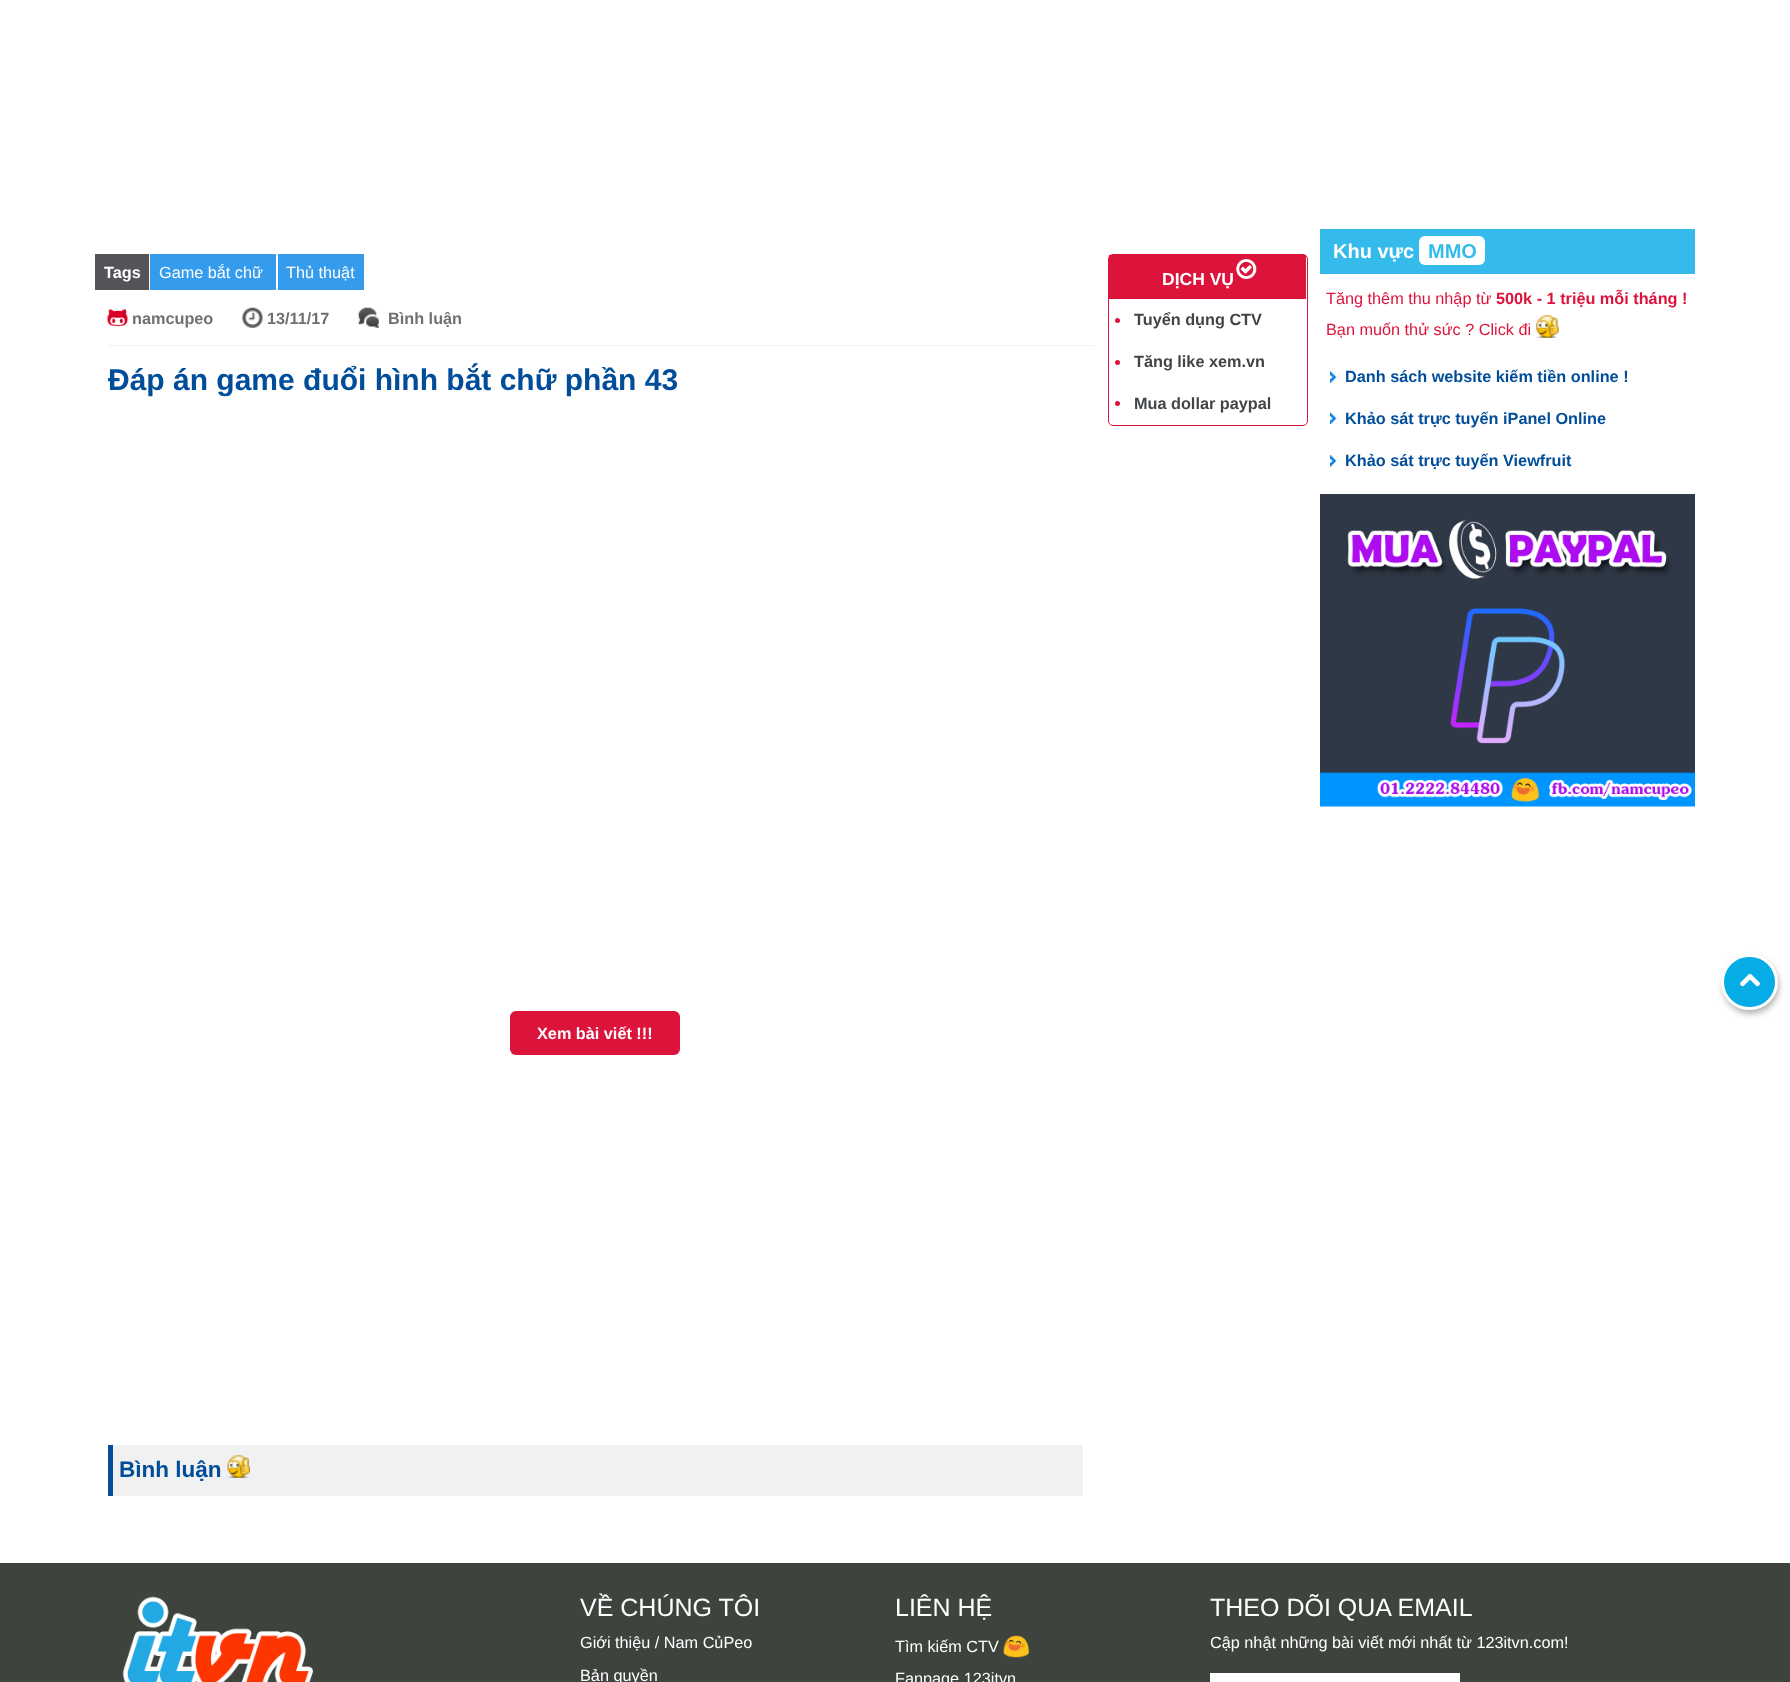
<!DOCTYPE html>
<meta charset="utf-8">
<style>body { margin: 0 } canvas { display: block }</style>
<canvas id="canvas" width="1790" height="1682"></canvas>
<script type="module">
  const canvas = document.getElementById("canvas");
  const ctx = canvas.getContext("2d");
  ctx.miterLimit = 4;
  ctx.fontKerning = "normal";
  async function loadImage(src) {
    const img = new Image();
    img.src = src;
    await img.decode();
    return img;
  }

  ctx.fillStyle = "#ffffff";
  ctx.fillRect(0, 0, 1790, 1682);
  ctx.fillStyle = "#525457";
  ctx.fillRect(95, 254, 54, 36);
  ctx.font = "bold 16.25px Liberation Sans";
  ctx.fillStyle = "#ffffff";
  ctx.fillText("Tags", 104, 278);
  ctx.fillStyle = "#359bed";
  ctx.fillRect(150, 254, 126, 36);
  ctx.font = "16.25px Liberation Sans";
  ctx.fillStyle = "#ffffff";
  ctx.fillText("Game bắt chữ", 159, 278);
  ctx.fillStyle = "#359bed";
  ctx.fillRect(278, 254, 86, 36);
  ctx.fillStyle = "#ffffff";
  ctx.fillText("Thủ thuật", 286, 278);
  ctx.fillStyle = "#f1f1f1";
  ctx.fillRect(108, 345, 987, 1);
  ctx.drawImage(await loadImage("img1.png"), 107, 309, 21, 18);
  ctx.font = "bold 16.25px Liberation Sans";
  ctx.fillStyle = "#707070";
  ctx.fillText("namcupeo", 132, 324);
  ctx.drawImage(await loadImage("img2.png"), 242, 307, 21, 21);
  ctx.fillText("13/11/17", 267, 324);
  ctx.drawImage(await loadImage("img3.png"), 358, 307, 21, 21);
  ctx.fillText("Bình luận", 388, 324);
  ctx.font = "bold 30px Liberation Sans";
  ctx.fillStyle = "#004d99";
  ctx.fillText("Đáp án game đuổi hình bắt chữ phần 43", 108, 390);
  ctx.fillStyle = "#dc143c";
  ctx.beginPath();
  ctx.roundRect(510, 1011, 170, 44, 6);
  ctx.fill();
  ctx.font = "bold 16.25px Liberation Sans";
  ctx.fillStyle = "#ffffff";
  ctx.fillText("Xem bài viết !!!", 537, 1039);
  ctx.fillStyle = "#f1f1f1";
  ctx.fillRect(113, 1445, 970, 51);
  ctx.fillStyle = "#004d99";
  ctx.fillRect(108, 1445, 5, 51);
  ctx.font = "bold 22.5px Liberation Sans";
  ctx.fillText("Bình luận", 119, 1477);
  ctx.drawImage(await loadImage("img4.png"), 227, 1455, 23, 23);
  ctx.beginPath();
  ctx.roundRect(1108.5, 254.5, 199, 171, 4.5);
  ctx.strokeStyle = "#dc143c";
  ctx.stroke();
  ctx.fillStyle = "#dc143c";
  ctx.fillRect(1109, 255, 197, 44);
  ctx.font = "bold 17.5px Liberation Sans";
  ctx.fillStyle = "#ffffff";
  ctx.fillText("DỊCH VỤ", 1162, 285);
  ctx.drawImage(await loadImage("img5.png"), 1236, 259, 21, 20);
  ctx.fillStyle = "#dc143c";
  ctx.beginPath();
  ctx.arc(1117.5, 320.5, 2.5, 0, Math.PI * 2);
  ctx.fill();
  ctx.font = "bold 16.25px Liberation Sans";
  ctx.fillStyle = "#424547";
  ctx.fillText("Tuyển dụng CTV", 1134, 325);
  ctx.fillStyle = "#dc143c";
  ctx.beginPath();
  ctx.arc(1117.5, 362.5, 2.5, 0, Math.PI * 2);
  ctx.fill();
  ctx.fillStyle = "#424547";
  ctx.fillText("Tăng like xem.vn", 1134, 367);
  ctx.fillStyle = "#dc143c";
  ctx.beginPath();
  ctx.arc(1117.5, 403.5, 2.5, 0, Math.PI * 2);
  ctx.fill();
  ctx.fillStyle = "#424547";
  ctx.fillText("Mua dollar paypal", 1134, 409);
  ctx.fillStyle = "#34bbeb";
  ctx.fillRect(1320, 229, 375, 45);
  ctx.font = "bold 20px Liberation Sans";
  ctx.fillStyle = "#ffffff";
  ctx.fillText("Khu vực", 1333, 258);
  ctx.beginPath();
  ctx.roundRect(1419, 236, 66, 29, 6);
  ctx.fill();
  ctx.fillStyle = "#34bbeb";
  ctx.fillText("MMO", 1428, 258);
  ctx.font = "16.25px Liberation Sans";
  ctx.fillStyle = "#dc143c";
  ctx.fillText("Tăng thêm thu nhập từ", 1326, 304);
  ctx.font = "bold 16.25px Liberation Sans";
  ctx.fillText("500k - 1 triệu mỗi tháng !", 1496, 304);
  ctx.font = "16.25px Liberation Sans";
  ctx.fillText("Bạn muốn thử sức ? Click đi", 1326, 335);
  ctx.drawImage(await loadImage("img6.png"), 1536, 315, 23, 23);
  ctx.drawImage(await loadImage("img7.png"), 1330, 371, 7, 12);
  ctx.font = "bold 16.25px Liberation Sans";
  ctx.fillStyle = "#004d99";
  ctx.fillText("Danh sách website kiếm tiền online !", 1345, 382);
  ctx.drawImage(await loadImage("img8.png"), 1330, 412, 7, 12);
  ctx.fillText("Khảo sát trực tuyến iPanel Online", 1345, 424);
  ctx.drawImage(await loadImage("img9.png"), 1330, 455, 7, 12);
  ctx.fillText("Khảo sát trực tuyến Viewfruit", 1345, 466);
  ctx.drawImage(await loadImage("img10.png"), 1320, 494, 375, 313);
  ctx.fillStyle = "rgba(0, 0, 0, 0.3)";
  ctx.filter = "blur(3px)";
  ctx.beginPath();
  ctx.roundRect(1723, 958, 56, 56, 28);
  ctx.fill();
  ctx.filter = "none";
  ctx.fillStyle = "#06ace6";
  ctx.beginPath();
  ctx.roundRect(1722.5, 955.5, 54, 53, 26.5);
  ctx.fill();
  ctx.strokeStyle = "#ffffff";
  ctx.lineWidth = 3;
  ctx.stroke();
  ctx.drawImage(await loadImage("img11.png"), 1740, 973, 20, 14);
  ctx.fillStyle = "#3e433e";
  ctx.fillRect(0, 1563, 1790, 119);
  ctx.drawImage(await loadImage("img12.png"), 122, 1596, 192, 86);
  ctx.font = "25px Liberation Sans";
  ctx.fillStyle = "#ffffff";
  ctx.fillText("VỀ CHÚNG TÔI", 580, 1616);
  ctx.font = "16.25px Liberation Sans";
  ctx.fillText("Giới thiệu / Nam CủPeo", 580, 1648);
  ctx.fillText("Bản quyền", 580, 1681);
  ctx.font = "25px Liberation Sans";
  ctx.fillText("LIÊN HỆ", 895, 1616);
  ctx.font = "16.25px Liberation Sans";
  ctx.fillText("Tìm kiếm CTV", 895, 1652);
  ctx.drawImage(await loadImage("img13.png"), 1003, 1635, 26, 23);
  ctx.fillText("Fanpage 123itvn", 895, 1684);
  ctx.font = "25px Liberation Sans";
  ctx.fillText("THEO DÕI QUA EMAIL", 1210, 1616);
  ctx.font = "16.25px Liberation Sans";
  ctx.fillText("Cập nhật những bài viết mới nhất từ 123itvn.com!", 1210, 1648);
  ctx.fillRect(1210, 1673, 250, 9);
</script>
